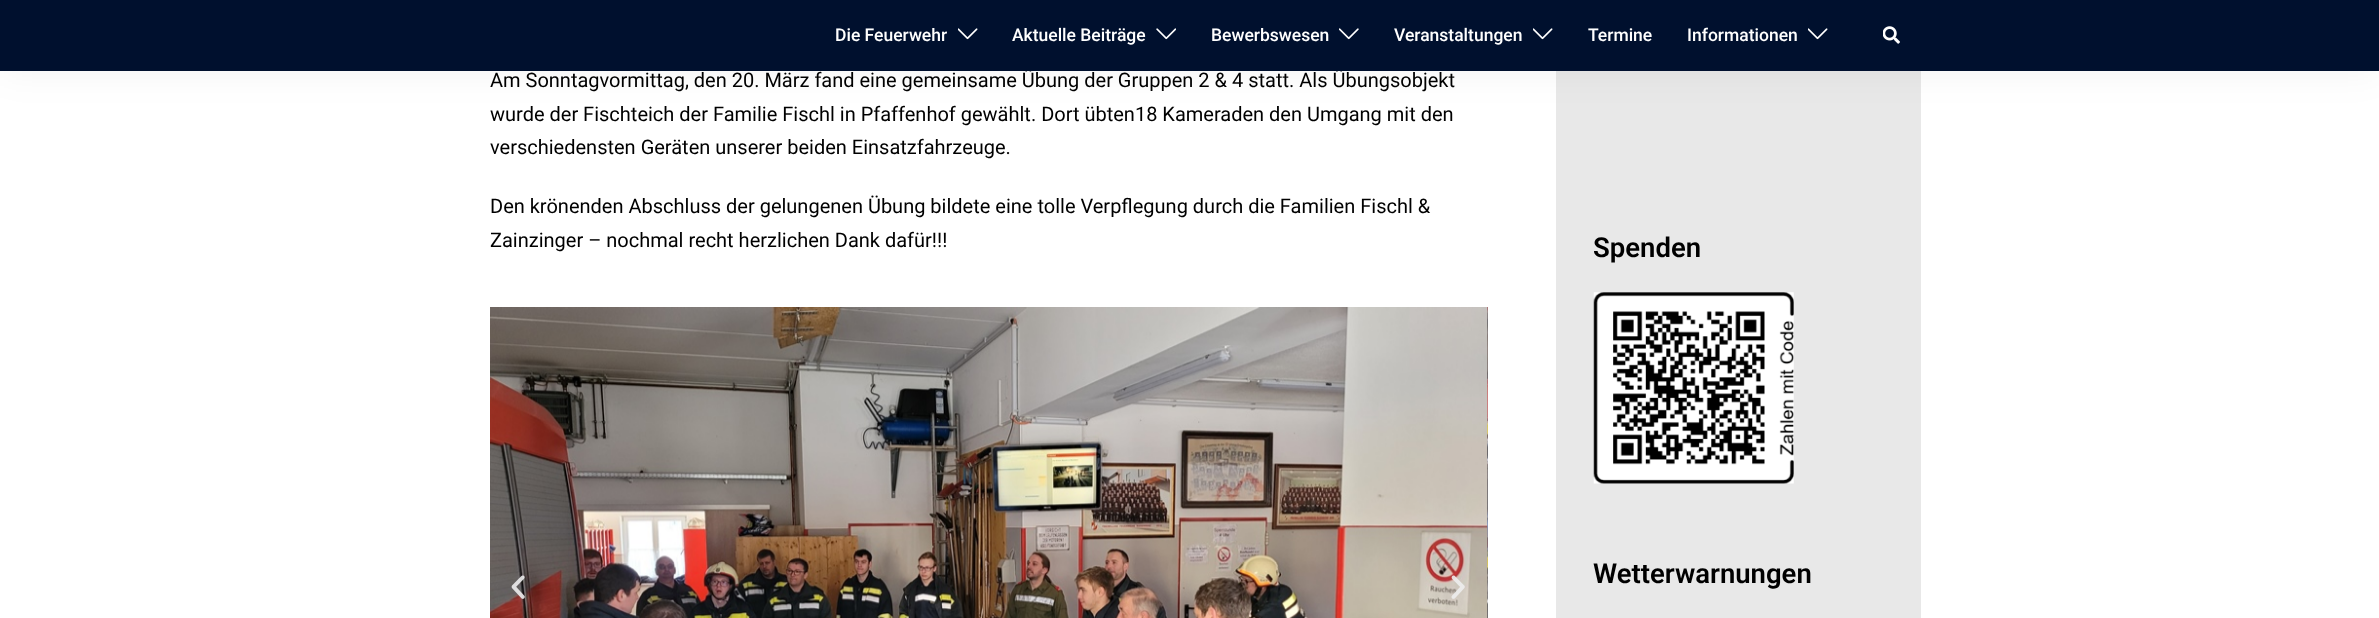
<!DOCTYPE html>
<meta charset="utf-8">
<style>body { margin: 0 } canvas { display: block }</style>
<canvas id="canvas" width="2379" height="618"></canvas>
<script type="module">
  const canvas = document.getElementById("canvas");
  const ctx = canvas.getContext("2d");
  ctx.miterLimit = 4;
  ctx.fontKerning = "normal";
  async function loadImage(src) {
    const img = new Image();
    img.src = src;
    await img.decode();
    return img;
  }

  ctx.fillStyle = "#ffffff";
  ctx.fillRect(0, 0, 2379, 618);
  ctx.fillStyle = "#e8e8e8";
  ctx.fillRect(1556, 71, 365, 547);
  ctx.fillStyle = "rgba(0, 0, 0, 0.05)";
  ctx.filter = "blur(19px)";
  ctx.beginPath();
  ctx.rect(0, 0, 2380, 71);
  ctx.fill();
  ctx.filter = "none";
  ctx.font = "20px Roboto";
  ctx.fillStyle = "#000000";
  ctx.fillText("Am Sonntagvormittag, den 20. März fand eine gemeinsame Übung der Gruppen 2 & 4 statt. Als Übungsobjekt", 490, 87);
  ctx.fillStyle = "#00102e";
  ctx.fillRect(0, 0, 2379, 71);
  ctx.font = "500 17.5px Roboto";
  ctx.fillStyle = "#ffffff";
  ctx.fillText("Die Feuerwehr", 835, 41);
  ctx.drawImage(await loadImage("img1.png"), 958, 28, 20, 12);
  ctx.fillText("Aktuelle Beiträge", 1012, 41);
  ctx.drawImage(await loadImage("img2.png"), 1156, 28, 20, 12);
  ctx.fillText("Bewerbswesen", 1211, 41);
  ctx.drawImage(await loadImage("img3.png"), 1339, 28, 20, 12);
  ctx.fillText("Veranstaltungen", 1394, 41);
  ctx.drawImage(await loadImage("img1.png"), 1533, 28, 20, 12);
  ctx.fillText("Termine", 1588, 41);
  ctx.fillText("Informationen", 1687, 41);
  ctx.drawImage(await loadImage("img1.png"), 1808, 28, 20, 12);
  ctx.drawImage(await loadImage("img4.png"), 1883, 26, 17, 18);
  ctx.font = "20px Roboto";
  ctx.fillStyle = "#000000";
  ctx.fillText("wurde der Fischteich der Familie Fischl in Pfaffenhof gewählt. Dort übten18 Kameraden den Umgang mit den", 490, 121);
  ctx.fillText("verschiedensten Geräten unserer beiden Einsatzfahrzeuge.", 490, 154);
  ctx.fillText("Den krönenden Abschluss der gelungenen Übung bildete eine tolle Verpflegung durch die Familien Fischl &", 490, 213);
  ctx.fillText("Zainzinger – nochmal recht herzlichen Dank dafür!!!", 490, 247);
  ctx.drawImage(await loadImage("img5.png"), 490, 307, 998, 311);
  ctx.drawImage(await loadImage("img6.png"), 1487, 307, 1, 311);
  ctx.drawImage(await loadImage("img7.png"), 511, 575, 14, 24);
  ctx.drawImage(await loadImage("img8.png"), 1451, 575, 14, 24);
  ctx.font = "600 27.5px Roboto";
  ctx.fillText("Spenden", 1593, 257);
  ctx.drawImage(await loadImage("img9.png"), 1593, 292, 201, 192);
  ctx.fillText("Wetterwarnungen", 1593, 583);
</script>
